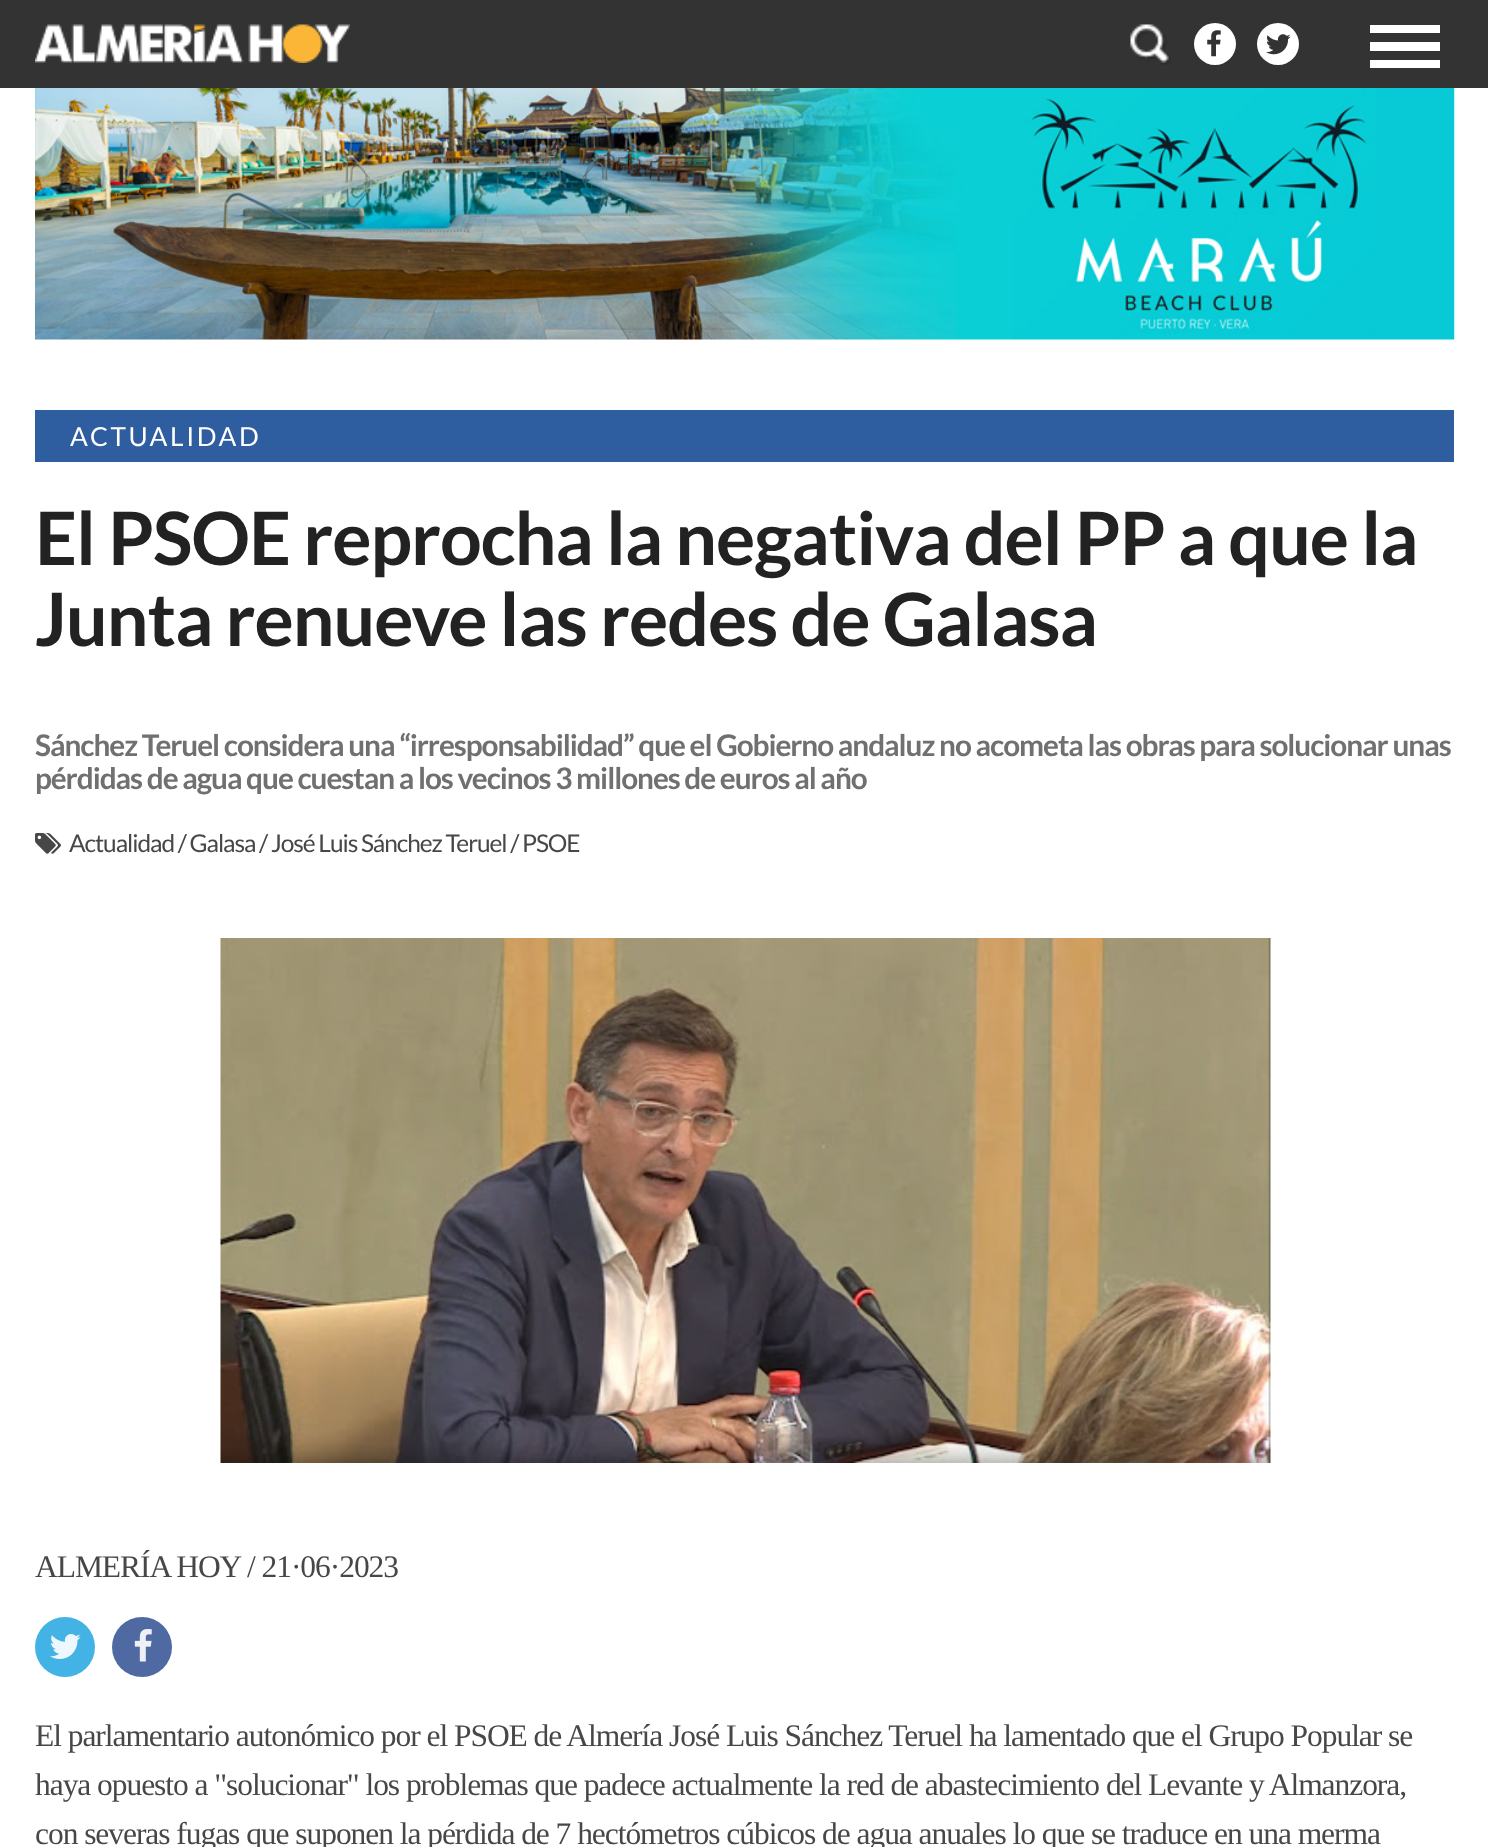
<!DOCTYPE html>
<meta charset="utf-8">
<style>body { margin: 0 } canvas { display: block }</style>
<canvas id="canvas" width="1488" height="1847"></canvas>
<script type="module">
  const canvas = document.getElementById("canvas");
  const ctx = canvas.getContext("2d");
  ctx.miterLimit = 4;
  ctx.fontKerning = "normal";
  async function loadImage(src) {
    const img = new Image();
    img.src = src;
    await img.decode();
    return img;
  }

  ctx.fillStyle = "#ffffff";
  ctx.fillRect(0, 0, 1488, 1847);
  ctx.fillStyle = "#333333";
  ctx.fillRect(0, 0, 1488, 88);
  ctx.drawImage(await loadImage("img1.png"), 35, 24, 315, 39);
  ctx.drawImage(await loadImage("img2.png"), 1130, 24, 41, 41);
  ctx.fillStyle = "#ffffff";
  ctx.beginPath();
  ctx.arc(1215, 44, 21, 0, Math.PI * 2);
  ctx.fill();
  ctx.drawImage(await loadImage("img3.png"), 1207, 30, 14, 27);
  ctx.beginPath();
  ctx.arc(1278, 44, 21, 0, Math.PI * 2);
  ctx.fill();
  ctx.drawImage(await loadImage("img4.png"), 1266, 34, 25, 21);
  ctx.fillRect(1370, 25, 70, 8);
  ctx.fillRect(1370, 42, 70, 9);
  ctx.fillRect(1370, 60, 70, 8);
  ctx.drawImage(await loadImage("img5.png"), 35, 88, 1420, 252);
  ctx.fillStyle = "#2e5da0";
  ctx.fillRect(35, 410, 1419, 52);
  ctx.letterSpacing = "2.6px";
  ctx.font = "26.25px Lato";
  ctx.fillStyle = "#ffffff";
  ctx.fillText("ACTUALIDAD", 70, 446);
  ctx.letterSpacing = "-1.05px";
  ctx.font = "bold 73.5px Lato";
  ctx.fillStyle = "#222222";
  ctx.fillText("El PSOE reprocha la negativa del PP a que la", 35, 565);
  ctx.fillText("Junta renueve las redes de Galasa", 35, 646);
  ctx.font = "bold 29.75px Lato";
  ctx.fillStyle = "#707070";
  ctx.fillText("Sánchez Teruel considera una “irresponsabilidad” que el Gobierno andaluz no acometa las obras para solucionar unas", 35, 756);
  ctx.fillText("pérdidas de agua que cuestan a los vecinos 3 millones de euros al año", 35, 789);
  ctx.drawImage(await loadImage("img6.png"), 35, 833, 26, 21);
  ctx.font = "24.5px Lato";
  ctx.fillStyle = "#474747";
  ctx.fillText("Actualidad / Galasa / José Luis Sánchez Teruel / PSOE", 69, 852);
  ctx.drawImage(await loadImage("img7.png"), 220, 938, 1051, 525);
  ctx.font = "31.5px Liberation Serif";
  ctx.fillText("ALMERÍA HOY / 21·06·2023", 35, 1577);
  ctx.fillStyle = "#42b3e4";
  ctx.beginPath();
  ctx.arc(65, 1647, 30, 0, Math.PI * 2);
  ctx.fill();
  ctx.drawImage(await loadImage("img8.png"), 50, 1634, 31, 25);
  ctx.fillStyle = "#4f6aa2";
  ctx.beginPath();
  ctx.arc(142, 1647, 30, 0, Math.PI * 2);
  ctx.fill();
  ctx.drawImage(await loadImage("img9.png"), 134, 1629, 18, 33);
  ctx.fillStyle = "#474747";
  ctx.fillText("El parlamentario autonómico por el PSOE de Almería José Luis Sánchez Teruel ha lamentado que el Grupo Popular se", 35, 1746);
  ctx.fillText("haya opuesto a \"solucionar\" los problemas que padece actualmente la red de abastecimiento del Levante y Almanzora,", 35, 1795);
  ctx.fillText("con severas fugas que suponen la pérdida de 7 hectómetros cúbicos de agua anuales lo que se traduce en una merma", 35, 1844);
</script>
